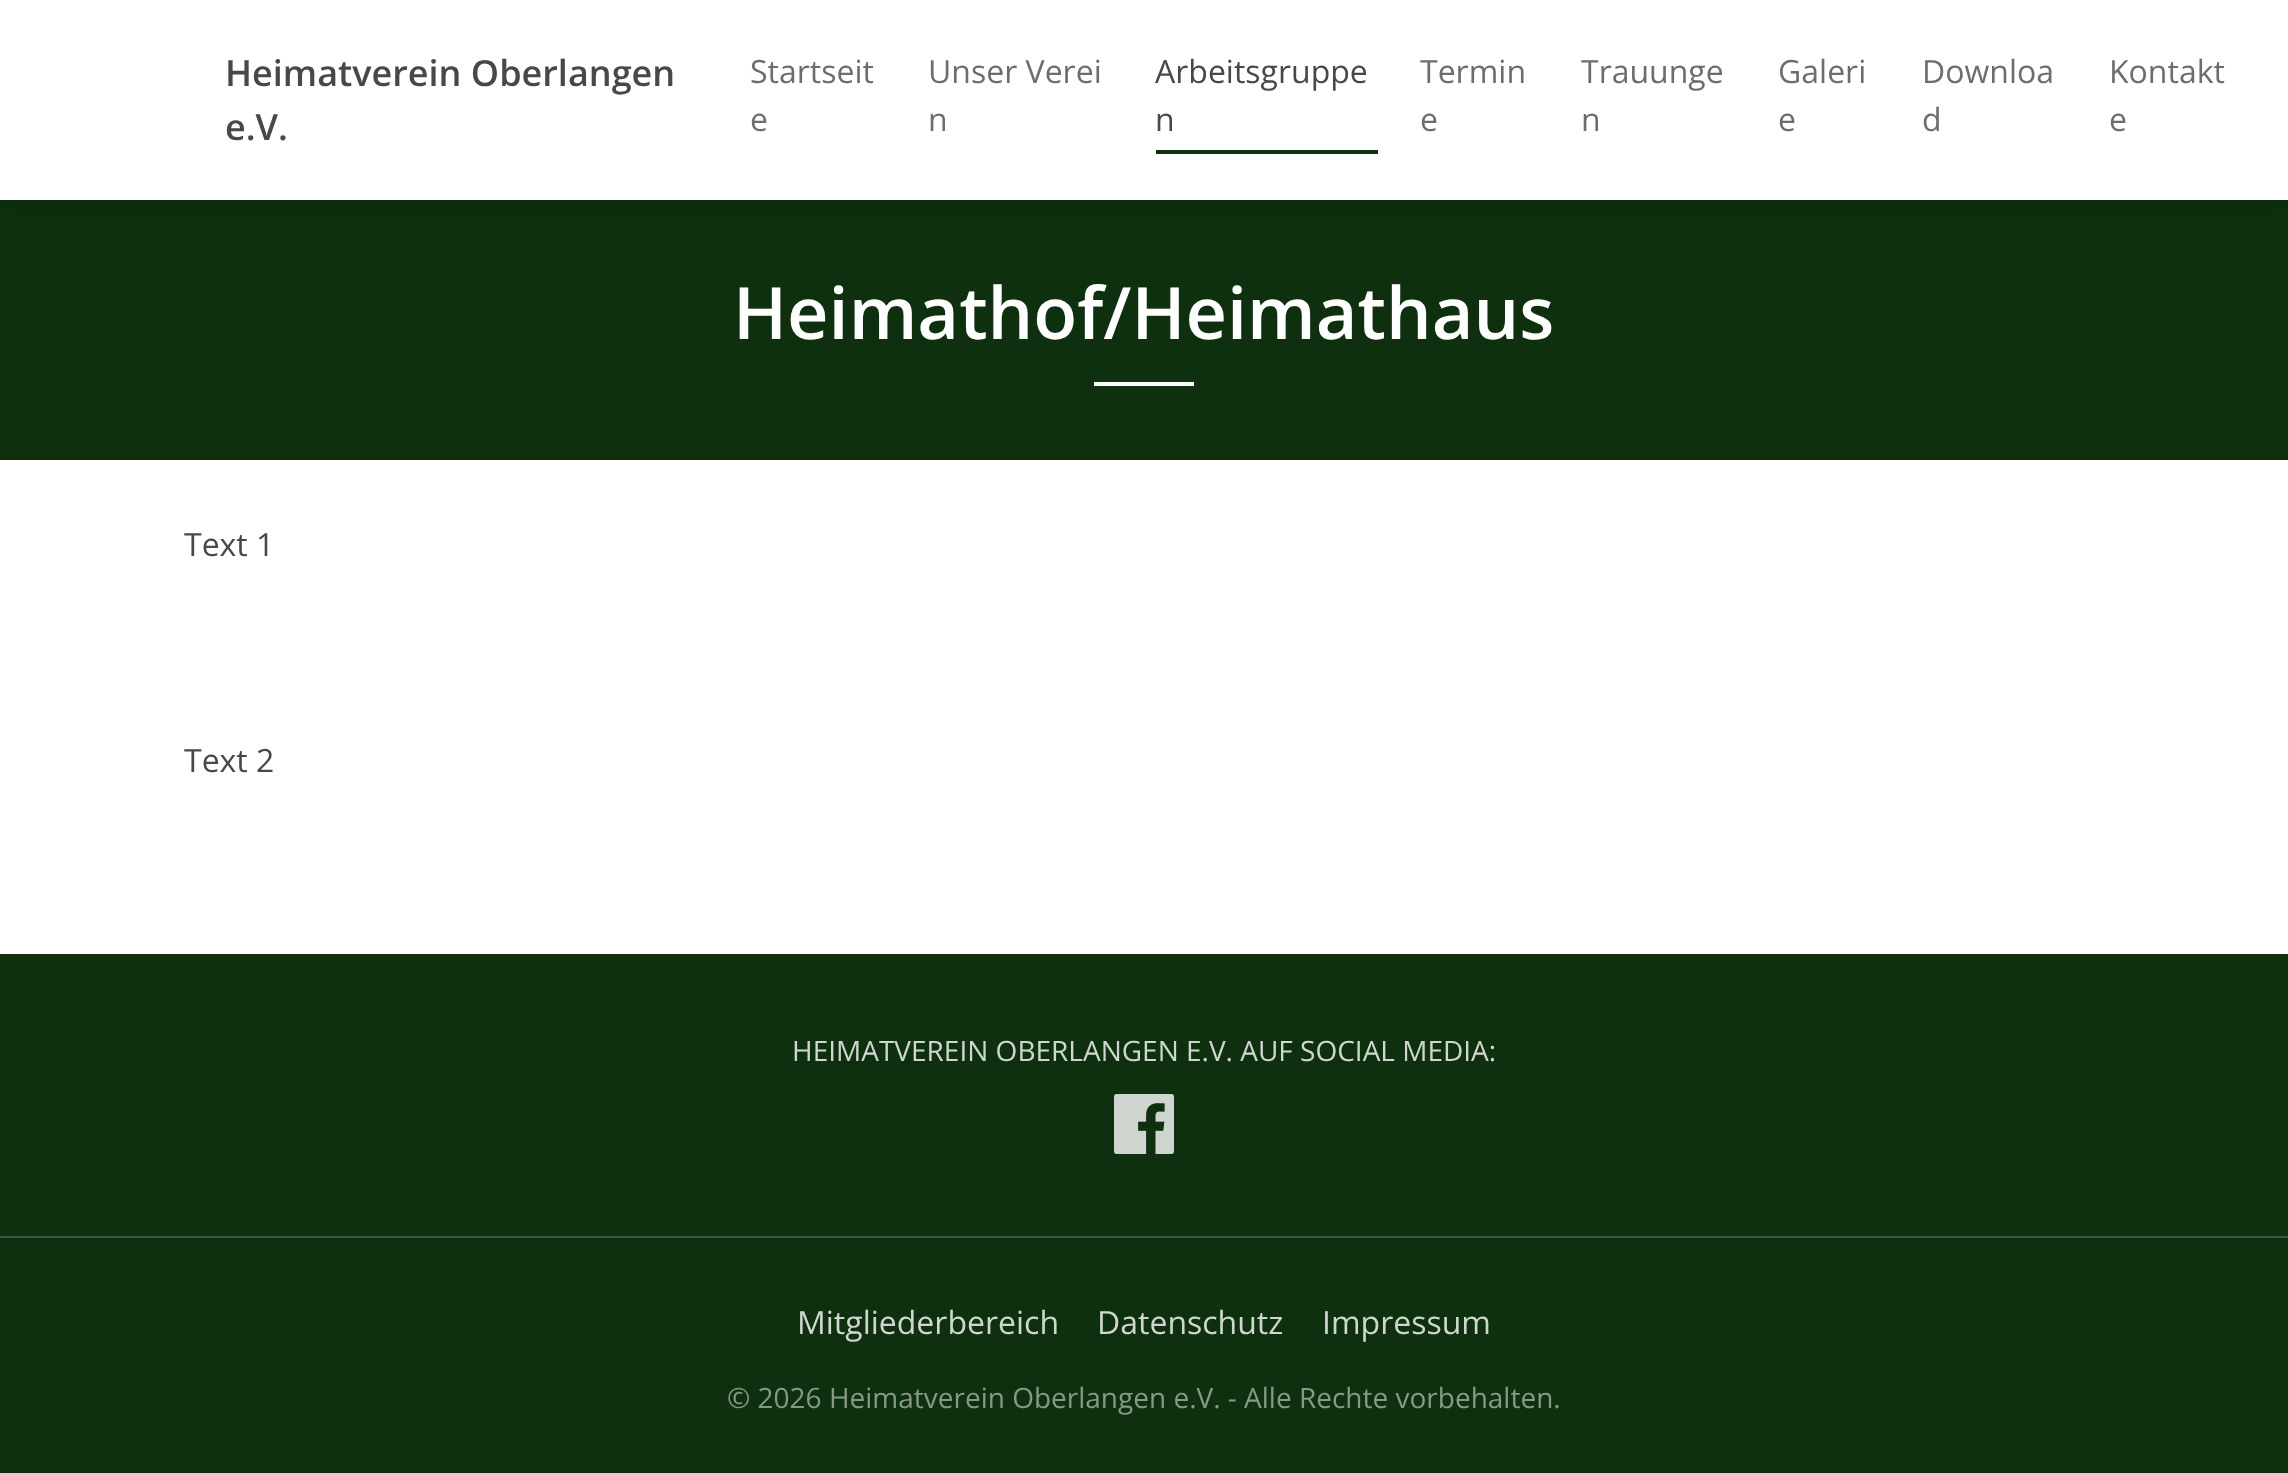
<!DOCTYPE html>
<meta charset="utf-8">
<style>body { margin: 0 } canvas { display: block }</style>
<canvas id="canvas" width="2288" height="1473"></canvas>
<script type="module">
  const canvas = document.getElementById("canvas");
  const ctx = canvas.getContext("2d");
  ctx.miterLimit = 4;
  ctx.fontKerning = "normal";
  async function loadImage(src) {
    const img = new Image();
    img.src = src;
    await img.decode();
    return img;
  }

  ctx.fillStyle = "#ffffff";
  ctx.fillRect(0, 0, 2288, 1473);
  ctx.fillStyle = "#0e300e";
  ctx.fillRect(0, 200, 2288, 260);
  ctx.fillStyle = "rgba(0, 0, 0, 0.1)";
  ctx.filter = "blur(10px)";
  ctx.beginPath();
  ctx.rect(0, 4, 2288, 200);
  ctx.fill();
  ctx.filter = "none";
  ctx.fillStyle = "#ffffff";
  ctx.fillRect(0, 0, 2288, 200);
  ctx.font = "600 36px Open Sans";
  ctx.fillStyle = "#484848";
  ctx.fillText("Heimatverein Oberlangen", 225, 86);
  ctx.fillText("e.V.", 225, 140);
  ctx.font = "32px Open Sans";
  ctx.fillStyle = "#6d6d6d";
  ctx.fillText("Startseit", 750, 83);
  ctx.fillText("e", 750, 131);
  ctx.fillText("Unser Verei", 928, 83);
  ctx.fillText("n", 928, 131);
  ctx.fillStyle = "#0e300e";
  ctx.fillRect(1156, 150, 222, 4);
  ctx.fillStyle = "#484848";
  ctx.fillText("Arbeitsgruppe", 1155, 83);
  ctx.fillText("n", 1155, 131);
  ctx.fillStyle = "#6d6d6d";
  ctx.fillText("Termin", 1420, 83);
  ctx.fillText("e", 1420, 131);
  ctx.fillText("Trauunge", 1581, 83);
  ctx.fillText("n", 1581, 131);
  ctx.fillText("Galeri", 1778, 83);
  ctx.fillText("e", 1778, 131);
  ctx.fillText("Downloa", 1922, 83);
  ctx.fillText("d", 1922, 131);
  ctx.fillText("Kontakt", 2109, 83);
  ctx.fillText("e", 2109, 131);
  ctx.font = "600 72px Open Sans";
  ctx.fillStyle = "#ffffff";
  ctx.fillText("Heimathof/Heimathaus", 733, 339);
  ctx.fillRect(1094, 382, 100, 4);
  ctx.font = "32px Open Sans";
  ctx.fillStyle = "#484848";
  ctx.fillText("Text 1", 184, 556);
  ctx.fillText("Text 2", 184, 772);
  ctx.fillStyle = "#0e300e";
  ctx.fillRect(0, 954, 2288, 282);
  ctx.fillStyle = "#3e593e";
  ctx.fillRect(0, 1236, 2288, 2);
  ctx.font = "28px Open Sans";
  ctx.fillStyle = "#cfd6cf";
  ctx.fillText("HEIMATVEREIN OBERLANGEN E.V. AUF SOCIAL MEDIA:", 792, 1061);
  ctx.drawImage(await loadImage("img1.png"), 1114, 1094, 60, 60);
  ctx.fillStyle = "#0e300e";
  ctx.fillRect(0, 1238, 2288, 235);
  ctx.font = "32px Open Sans";
  ctx.fillStyle = "#cfd6cf";
  ctx.fillText("Mitgliederbereich", 797, 1334);
  ctx.fillText("Datenschutz", 1097, 1334);
  ctx.fillText("Impressum", 1322, 1334);
  ctx.font = "28px Open Sans";
  ctx.fillStyle = "#879887";
  ctx.fillText("© 2026 Heimatverein Oberlangen e.V. - Alle Rechte vorbehalten.", 727, 1408);
</script>
